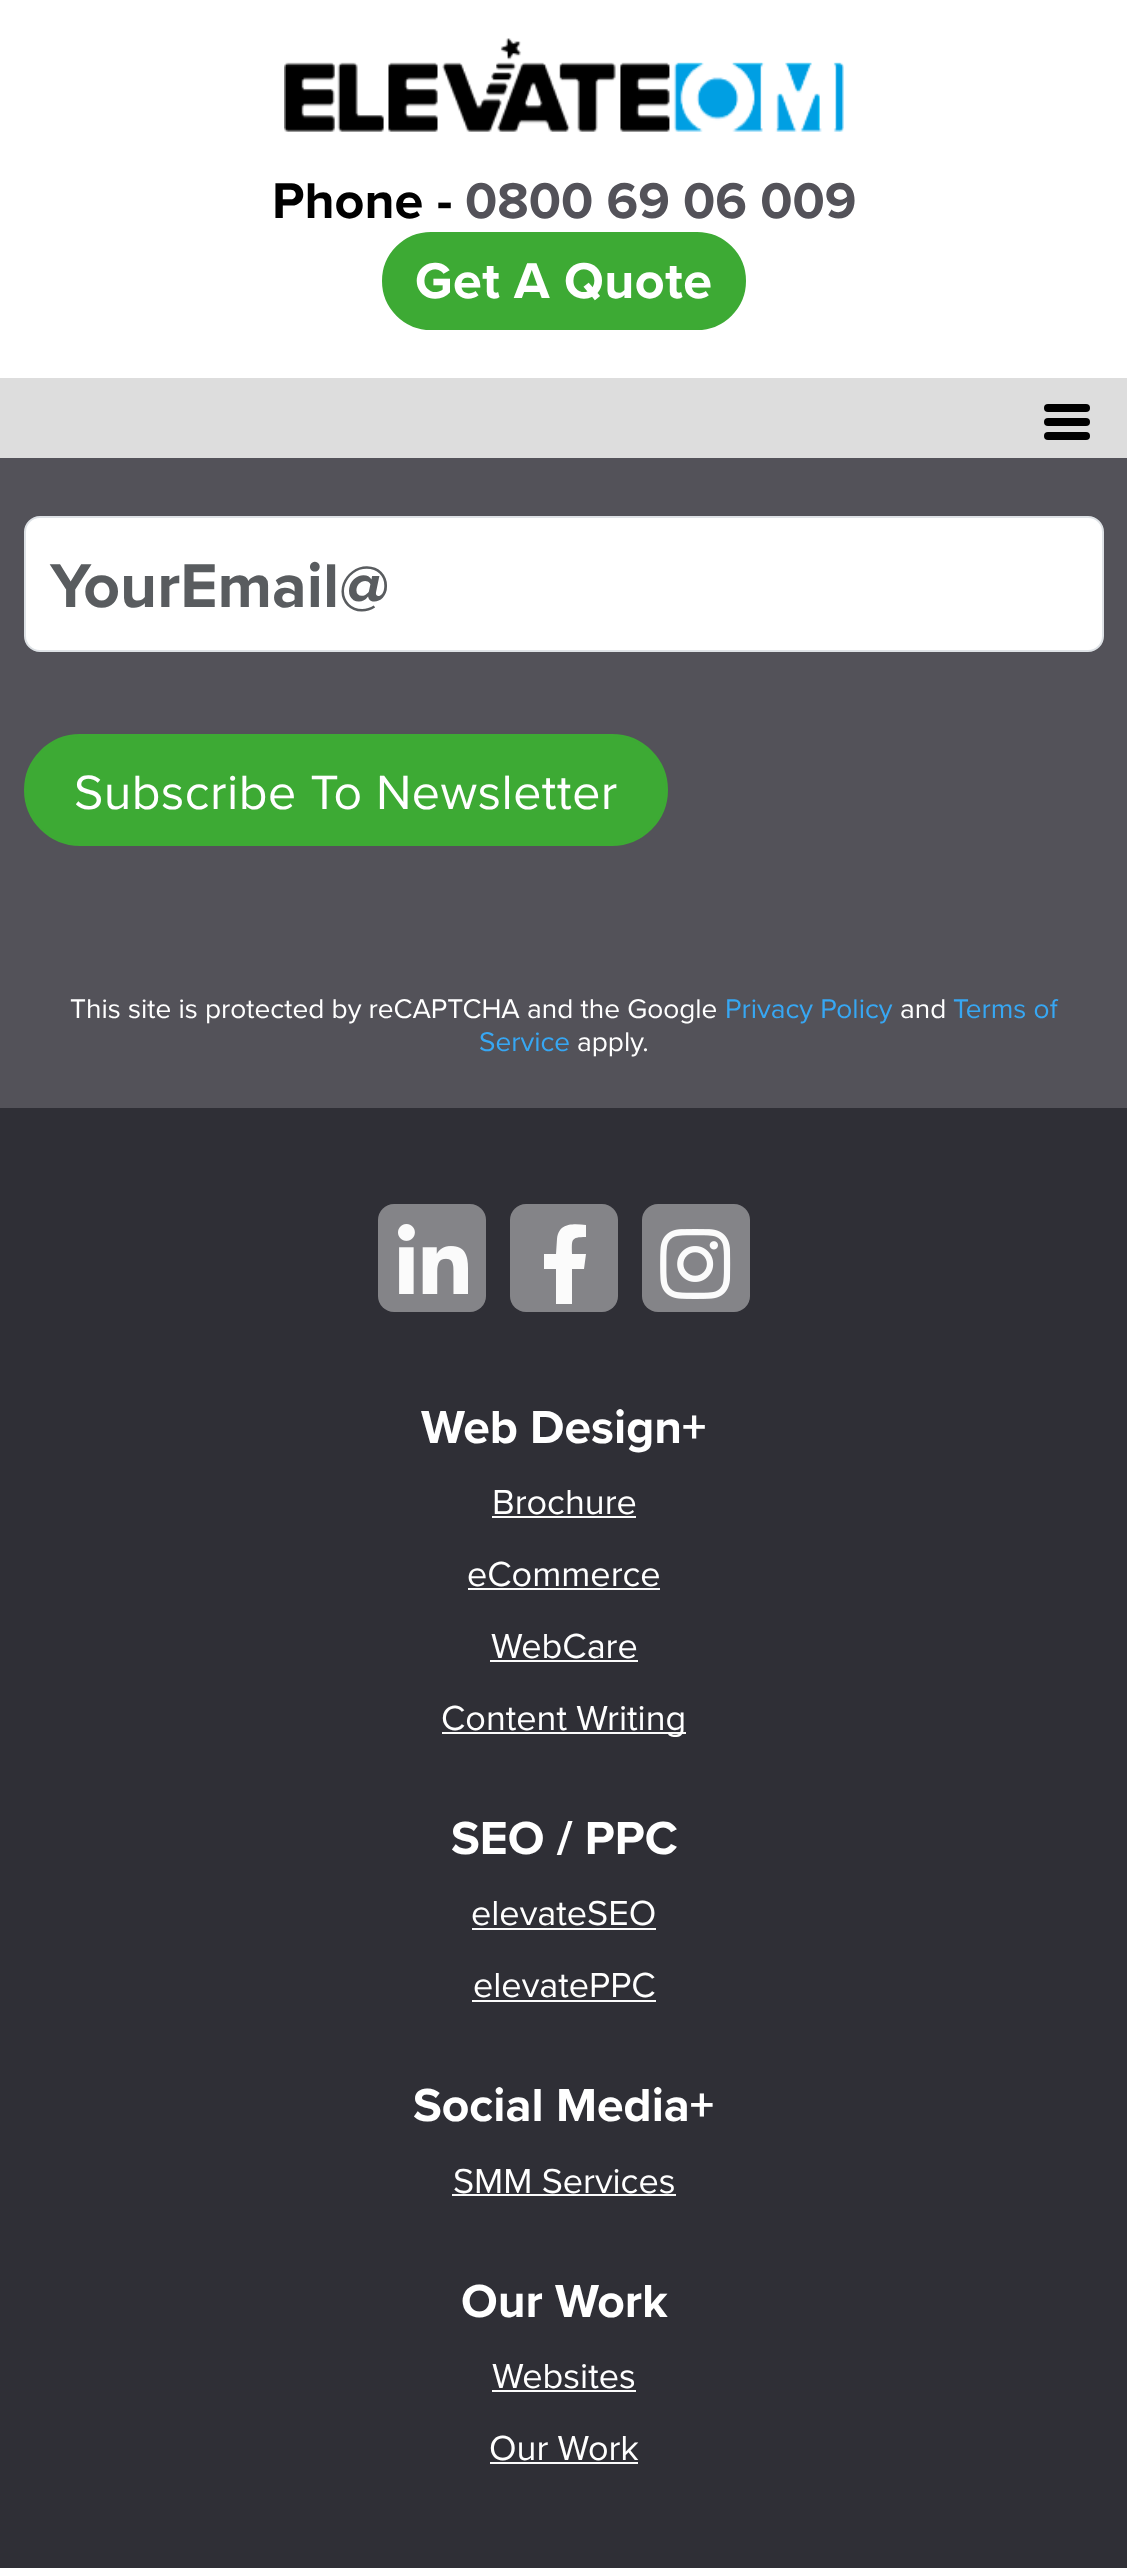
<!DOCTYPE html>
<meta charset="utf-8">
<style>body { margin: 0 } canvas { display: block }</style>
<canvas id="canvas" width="1127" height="2568"></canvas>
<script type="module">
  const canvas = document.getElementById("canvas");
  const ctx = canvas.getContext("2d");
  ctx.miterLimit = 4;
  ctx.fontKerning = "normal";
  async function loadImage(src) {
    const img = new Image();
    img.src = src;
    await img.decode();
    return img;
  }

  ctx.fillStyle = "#535259";
  ctx.fillRect(0, 0, 1127, 2568);
  ctx.fillStyle = "#ffffff";
  ctx.fillRect(0, 0, 1127, 378);
  ctx.drawImage(await loadImage("img1.png"), 284, 38, 560, 94);
  ctx.font = "bold 52px Proxima Nova";
  ctx.fillStyle = "#000000";
  ctx.fillText("Phone -", 272, 218);
  ctx.fillStyle = "#535259";
  ctx.fillText("0800 69 06 009", 465, 218);
  ctx.fillStyle = "#3daa34";
  ctx.beginPath();
  ctx.roundRect(383, 233, 362, 96, 48);
  ctx.fill();
  ctx.strokeStyle = "#3daa34";
  ctx.lineWidth = 2;
  ctx.stroke();
  ctx.letterSpacing = "0.5px";
  ctx.fillStyle = "#ffffff";
  ctx.fillText("Get A Quote", 415, 298);
  ctx.fillStyle = "#dddddd";
  ctx.fillRect(0, 378, 1127, 80);
  ctx.fillStyle = "#000000";
  ctx.beginPath();
  ctx.roundRect(1044, 418, 46, 8, 4);
  ctx.fill();
  ctx.beginPath();
  ctx.roundRect(1044, 404, 46, 8, 4);
  ctx.fill();
  ctx.beginPath();
  ctx.roundRect(1044, 432, 46, 8, 4);
  ctx.fill();
  ctx.fillStyle = "#ffffff";
  ctx.beginPath();
  ctx.roundRect(25, 517, 1078, 134, 15);
  ctx.fill();
  ctx.strokeStyle = "#dee2e6";
  ctx.stroke();
  ctx.letterSpacing = "0px";
  ctx.font = "bold 64px Proxima Nova";
  ctx.fillStyle = "#595c5f";
  ctx.fillText("YourEmail@", 50, 607);
  ctx.fillStyle = "#3daa34";
  ctx.beginPath();
  ctx.roundRect(25, 735, 642, 110, 55);
  ctx.fill();
  ctx.strokeStyle = "#3daa34";
  ctx.stroke();
  ctx.letterSpacing = "0.5px";
  ctx.font = "50px Proxima Nova";
  ctx.fillStyle = "#ffffff";
  ctx.fillText("Subscribe To Newsletter", 74, 809);
  ctx.letterSpacing = "0px";
  ctx.font = "28px Proxima Nova";
  ctx.fillText("This site is protected by reCAPTCHA and the Google", 70, 1018);
  ctx.fillStyle = "#37a7f3";
  ctx.fillText("Privacy Policy", 725, 1018);
  ctx.fillStyle = "#ffffff";
  ctx.fillText("and", 900, 1018);
  ctx.fillStyle = "#37a7f3";
  ctx.fillText("Terms of", 953, 1018);
  ctx.fillText("Service", 479, 1051);
  ctx.fillStyle = "#ffffff";
  ctx.fillText("apply.", 577, 1051);
  ctx.fillStyle = "#2f2f36";
  ctx.fillRect(0, 1108, 1127, 1460);
  ctx.fillStyle = "#848488";
  ctx.beginPath();
  ctx.roundRect(378, 1204, 108, 108, 16);
  ctx.fill();
  ctx.drawImage(await loadImage("img2.png"), 398, 1224, 70, 70);
  ctx.beginPath();
  ctx.roundRect(510, 1204, 108, 108, 16);
  ctx.fill();
  ctx.fillStyle = "#fbfbfb";
  ctx.beginPath();
  ctx.moveTo(584, 1269);
  ctx.lineTo(572, 1269);
  ctx.lineTo(572, 1304);
  ctx.lineTo(556, 1304);
  ctx.lineTo(556, 1269);
  ctx.lineTo(544, 1269);
  ctx.lineTo(544, 1254);
  ctx.lineTo(556, 1254);
  ctx.lineTo(557, 1239);
  ctx.bezierCurveTo(559, 1222, 574, 1224, 586, 1225);
  ctx.lineTo(586, 1237);
  ctx.bezierCurveTo(570, 1237, 572, 1240, 572, 1254);
  ctx.lineTo(586, 1254);
  ctx.closePath();
  ctx.fill();
  ctx.fillStyle = "#848488";
  ctx.beginPath();
  ctx.roundRect(642, 1204, 108, 108, 16);
  ctx.fill();
  ctx.drawImage(await loadImage("img3.png"), 660, 1229, 71, 70);
  ctx.font = "bold 48px Proxima Nova";
  ctx.fillStyle = "#ffffff";
  ctx.fillText("Web Design+", 421, 1443);
  ctx.font = "36px Proxima Nova";
  ctx.fillText("Brochure", 492, 1514);
  ctx.fillStyle = "#fbfbfb";
  ctx.fillRect(492, 1516, 144, 2);
  ctx.fillStyle = "#ffffff";
  ctx.fillText("eCommerce", 467, 1586);
  ctx.fillStyle = "#fbfbfb";
  ctx.fillRect(468, 1588, 192, 2);
  ctx.fillStyle = "#ffffff";
  ctx.fillText("WebCare", 491, 1658);
  ctx.fillStyle = "#fbfbfb";
  ctx.fillRect(490, 1660, 148, 2);
  ctx.fillRect(442, 1732, 244, 2);
  ctx.fillStyle = "#ffffff";
  ctx.fillText("Content Writing", 441, 1730);
  ctx.font = "bold 48px Proxima Nova";
  ctx.fillText("SEO / PPC", 451, 1854);
  ctx.font = "36px Proxima Nova";
  ctx.fillText("elevateSEO", 471, 1925);
  ctx.fillStyle = "#fbfbfb";
  ctx.fillRect(472, 1928, 184, 2);
  ctx.fillStyle = "#ffffff";
  ctx.fillText("elevatePPC", 473, 1997);
  ctx.fillStyle = "#fbfbfb";
  ctx.fillRect(472, 2000, 184, 2);
  ctx.font = "bold 48px Proxima Nova";
  ctx.fillStyle = "#ffffff";
  ctx.fillText("Social Media+", 413, 2121);
  ctx.font = "36px Proxima Nova";
  ctx.fillText("SMM Services", 453, 2193);
  ctx.fillStyle = "#fbfbfb";
  ctx.fillRect(452, 2194, 224, 2);
  ctx.font = "bold 48px Proxima Nova";
  ctx.fillStyle = "#ffffff";
  ctx.fillText("Our Work", 461, 2317);
  ctx.font = "36px Proxima Nova";
  ctx.fillText("Websites", 492, 2388);
  ctx.fillStyle = "#fbfbfb";
  ctx.fillRect(492, 2390, 144, 2);
  ctx.fillStyle = "#ffffff";
  ctx.fillText("Our Work", 489, 2460);
  ctx.fillStyle = "#fbfbfb";
  ctx.fillRect(490, 2462, 148, 2);
</script>
